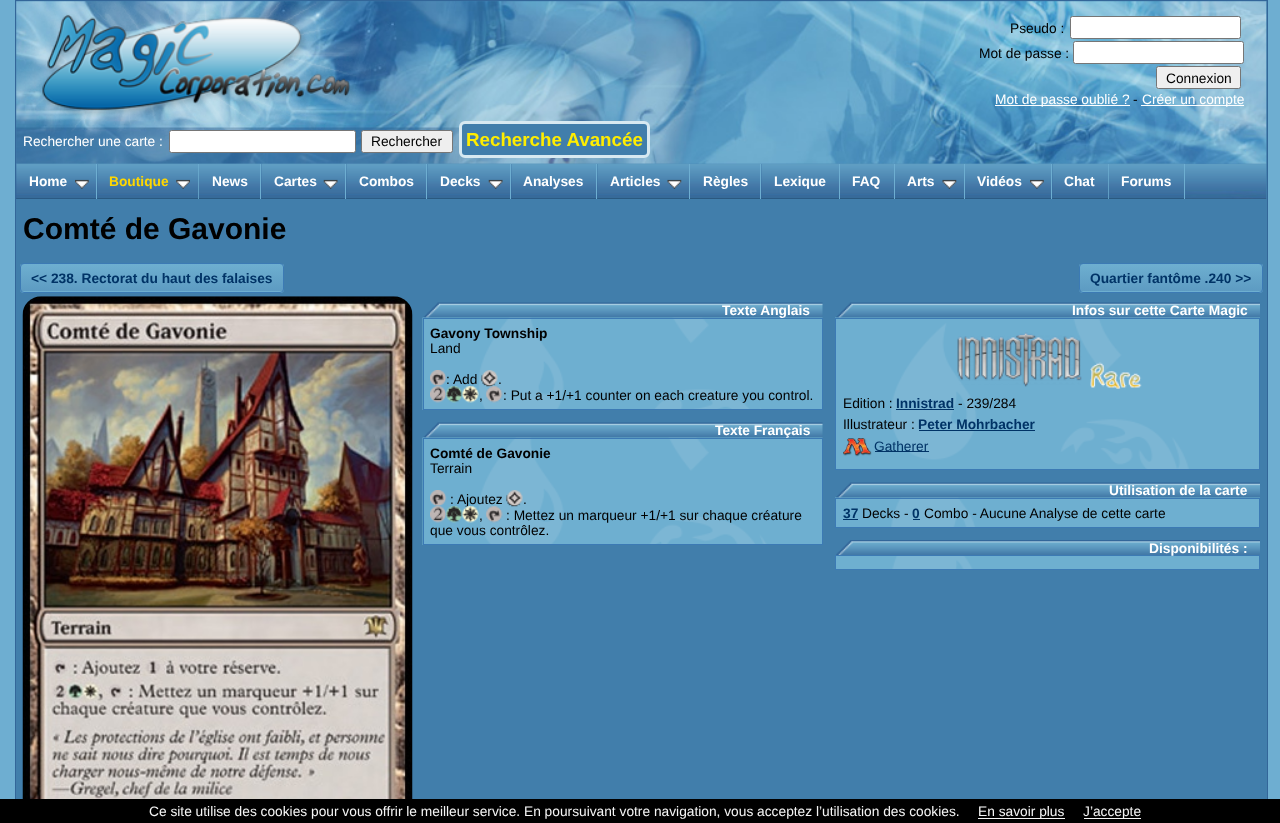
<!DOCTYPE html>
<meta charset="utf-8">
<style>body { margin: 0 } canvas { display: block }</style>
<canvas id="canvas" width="1280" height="823"></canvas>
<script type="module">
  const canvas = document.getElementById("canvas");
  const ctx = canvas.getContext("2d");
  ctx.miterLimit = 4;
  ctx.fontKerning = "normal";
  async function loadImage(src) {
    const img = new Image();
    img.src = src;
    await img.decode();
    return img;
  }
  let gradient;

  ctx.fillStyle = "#6eaed1";
  ctx.fillRect(0, 0, 1280, 823);
  ctx.fillStyle = "#417eab";
  ctx.fillRect(16, 1, 1251, 798);
  ctx.strokeStyle = "#336699";
  ctx.strokeRect(15.5, 0.5, 1252, 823);
  ctx.drawImage(await loadImage("img3.png"), 16, 163, 1251, 36);
  ctx.drawImage(await loadImage("img1.png"), 16, 1, 1251, 163);
  ctx.drawImage(await loadImage("img2.png"), 16, 1, 355, 153);
  ctx.font = "13.75px Liberation Sans";
  ctx.fillStyle = "#000000";
  ctx.fillText("Pseudo :", 1010, 33);
  ctx.fillStyle = "#ffffff";
  ctx.beginPath();
  ctx.roundRect(1070.5, 16.5, 170, 22, 2);
  ctx.fill();
  ctx.strokeStyle = "#767676";
  ctx.stroke();
  ctx.fillStyle = "#000000";
  ctx.fillText("Mot de passe :", 979, 58);
  ctx.fillStyle = "#ffffff";
  ctx.beginPath();
  ctx.roundRect(1073.5, 41.5, 170, 22, 2);
  ctx.fill();
  ctx.stroke();
  ctx.fillStyle = "#efefef";
  ctx.beginPath();
  ctx.roundRect(1156.5, 66.5, 84, 22, 2);
  ctx.fill();
  ctx.stroke();
  ctx.fillStyle = "#000000";
  ctx.fillText("Connexion", 1166, 83);
  ctx.fillStyle = "#ffffff";
  ctx.fillRect(995, 105, 135, 1);
  ctx.fillText("Mot de passe oublié ?", 995, 104);
  ctx.fillStyle = "#000000";
  ctx.fillText("-", 1133, 104);
  ctx.fillStyle = "#ffffff";
  ctx.fillRect(1141, 105, 103, 1);
  ctx.fillText("Créer un compte", 1142, 104);
  ctx.fillText("Rechercher une carte :", 23, 146);
  ctx.beginPath();
  ctx.roundRect(169.5, 130.5, 186, 22, 2);
  ctx.fill();
  ctx.stroke();
  ctx.fillStyle = "#efefef";
  ctx.beginPath();
  ctx.roundRect(361.5, 130.5, 91, 22, 2);
  ctx.fill();
  ctx.stroke();
  ctx.fillStyle = "#000000";
  ctx.fillText("Rechercher", 371, 146);
  ctx.fillStyle = "#417eab";
  ctx.beginPath();
  ctx.roundRect(460.5, 122.5, 188, 34, 4.5);
  ctx.fill();
  ctx.strokeStyle = "#d7e9f1";
  ctx.lineWidth = 3;
  ctx.stroke();
  ctx.font = "bold 18.75px Liberation Sans";
  ctx.fillStyle = "#ffed00";
  ctx.fillText("Recherche Avancée", 466, 146);
  ctx.fillStyle = "#336699";
  ctx.fillRect(16, 164, 82, 35);
  ctx.drawImage(await loadImage("img4.png"), 16, 163, 82, 36);
  ctx.fillStyle = "#6eaed1";
  ctx.fillRect(96, 164, 1, 35);
  ctx.font = "bold 13.75px Liberation Sans";
  ctx.fillStyle = "#ffffff";
  ctx.fillText("Home", 29, 186);
  ctx.drawImage(await loadImage("img5.png"), 75, 179, 14, 10);
  ctx.drawImage(await loadImage("img6.png"), 97, 163, 102, 36);
  ctx.fillStyle = "#6eaed1";
  ctx.fillRect(198, 164, 1, 35);
  ctx.fillStyle = "#ffd700";
  ctx.fillText("Boutique", 109, 186);
  ctx.drawImage(await loadImage("img7.png"), 176, 179, 14, 10);
  ctx.drawImage(await loadImage("img8.png"), 198, 163, 63, 36);
  ctx.fillStyle = "#6eaed1";
  ctx.fillRect(260, 164, 1, 35);
  ctx.fillStyle = "#ffffff";
  ctx.fillText("News", 212, 186);
  ctx.fillStyle = "#336699";
  ctx.fillRect(261, 164, 84, 35);
  ctx.drawImage(await loadImage("img9.png"), 261, 163, 85, 36);
  ctx.fillStyle = "#6eaed1";
  ctx.fillRect(345, 164, 1, 35);
  ctx.fillStyle = "#ffffff";
  ctx.fillText("Cartes", 274, 186);
  ctx.drawImage(await loadImage("img10.png"), 323, 179, 15, 10);
  ctx.fillStyle = "#336699";
  ctx.fillRect(346, 164, 82, 35);
  ctx.drawImage(await loadImage("img11.png"), 346, 163, 82, 36);
  ctx.fillStyle = "#6eaed1";
  ctx.fillRect(426, 164, 1, 35);
  ctx.fillStyle = "#ffffff";
  ctx.fillText("Combos", 359, 186);
  ctx.drawImage(await loadImage("img12.png"), 427, 163, 84, 36);
  ctx.fillStyle = "#6eaed1";
  ctx.fillRect(510, 164, 1, 35);
  ctx.fillStyle = "#ffffff";
  ctx.fillText("Decks", 440, 186);
  ctx.drawImage(await loadImage("img10.png"), 488, 179, 15, 10);
  ctx.fillStyle = "#336699";
  ctx.fillRect(511, 164, 87, 35);
  ctx.drawImage(await loadImage("img13.png"), 511, 163, 87, 36);
  ctx.fillStyle = "#6eaed1";
  ctx.fillRect(596, 164, 1, 35);
  ctx.fillStyle = "#ffffff";
  ctx.fillText("Analyses", 523, 186);
  ctx.drawImage(await loadImage("img14.png"), 597, 163, 93, 36);
  ctx.fillStyle = "#6eaed1";
  ctx.fillRect(689, 164, 1, 35);
  ctx.fillStyle = "#ffffff";
  ctx.fillText("Articles", 610, 186);
  ctx.drawImage(await loadImage("img15.png"), 667, 179, 15, 10);
  ctx.drawImage(await loadImage("img16.png"), 690, 164, 70, 35);
  ctx.fillStyle = "#6eaed1";
  ctx.fillRect(760, 164, 1, 35);
  ctx.fillStyle = "#ffffff";
  ctx.fillText("Règles", 703, 186);
  ctx.fillStyle = "#336699";
  ctx.fillRect(761, 164, 78, 35);
  ctx.drawImage(await loadImage("img17.png"), 761, 163, 79, 36);
  ctx.fillStyle = "#6eaed1";
  ctx.fillRect(839, 164, 1, 35);
  ctx.fillStyle = "#ffffff";
  ctx.fillText("Lexique", 774, 186);
  ctx.drawImage(await loadImage("img18.png"), 840, 163, 55, 36);
  ctx.fillStyle = "#6eaed1";
  ctx.fillRect(894, 164, 1, 35);
  ctx.fillStyle = "#ffffff";
  ctx.fillText("FAQ", 852, 186);
  ctx.drawImage(await loadImage("img19.png"), 895, 163, 70, 36);
  ctx.fillStyle = "#6eaed1";
  ctx.fillRect(964, 164, 1, 35);
  ctx.fillStyle = "#ffffff";
  ctx.fillText("Arts", 907, 186);
  ctx.drawImage(await loadImage("img20.png"), 942, 179, 15, 10);
  ctx.fillStyle = "#336699";
  ctx.fillRect(965, 164, 88, 35);
  ctx.drawImage(await loadImage("img21.png"), 965, 163, 88, 36);
  ctx.fillStyle = "#6eaed1";
  ctx.fillRect(1051, 164, 1, 35);
  ctx.fillStyle = "#ffffff";
  ctx.fillText("Vidéos", 977, 186);
  ctx.drawImage(await loadImage("img5.png"), 1030, 179, 14, 10);
  ctx.drawImage(await loadImage("img22.png"), 1052, 163, 57, 36);
  ctx.fillStyle = "#6eaed1";
  ctx.fillRect(1108, 164, 1, 35);
  ctx.fillStyle = "#ffffff";
  ctx.fillText("Chat", 1064, 186);
  ctx.drawImage(await loadImage("img23.png"), 1108, 163, 77, 36);
  ctx.fillStyle = "#6eaed1";
  ctx.fillRect(1184, 164, 1, 35);
  ctx.fillStyle = "#ffffff";
  ctx.fillText("Forums", 1121, 186);
  ctx.font = "bold 30px Liberation Sans";
  ctx.fillStyle = "#000000";
  ctx.fillText("Comté de Gavonie", 23, 239);
  ctx.save();
  ctx.beginPath();
  ctx.roundRect(20, 263, 264, 30, 4);
  ctx.clip();
  gradient = ctx.createLinearGradient(152, 264, 152, 291);
  gradient.addColorStop(0, "#6eafd0");
  gradient.addColorStop(1, "#5d9bc2");
  ctx.fillStyle = gradient;
  ctx.fillRect(20, 264, 264, 27);
  gradient = ctx.createLinearGradient(152, 291, 152, 319);
  gradient.addColorStop(0, "#6eafd0");
  gradient.addColorStop(1, "#5d9bc2");
  ctx.fillStyle = gradient;
  ctx.fillRect(20, 291, 264, 2);
  ctx.restore();
  ctx.beginPath();
  ctx.roundRect(20.5, 263.5, 263, 29, 3.5);
  ctx.strokeStyle = "#3c7ab4";
  ctx.lineWidth = 1;
  ctx.stroke();
  ctx.font = "bold 13.75px Liberation Sans";
  ctx.fillStyle = "#003366";
  ctx.fillText("<< 238. Rectorat du haut des falaises", 31, 283);
  ctx.save();
  ctx.beginPath();
  ctx.roundRect(1079, 263, 184, 30, 4);
  ctx.clip();
  gradient = ctx.createLinearGradient(1171, 264, 1171, 291);
  gradient.addColorStop(0, "#6eafd0");
  gradient.addColorStop(1, "#5d9bc2");
  ctx.fillStyle = gradient;
  ctx.fillRect(1079, 264, 184, 27);
  gradient = ctx.createLinearGradient(1171, 291, 1171, 319);
  gradient.addColorStop(0, "#6eafd0");
  gradient.addColorStop(1, "#5d9bc2");
  ctx.fillStyle = gradient;
  ctx.fillRect(1079, 291, 184, 2);
  ctx.restore();
  ctx.beginPath();
  ctx.roundRect(1079.5, 263.5, 183, 29, 3.5);
  ctx.stroke();
  ctx.fillText("Quartier fantôme .240 >>", 1090, 283);
  ctx.drawImage(await loadImage("img24.png"), 22, 296, 391, 503);
  ctx.drawImage(await loadImage("img25.png"), 423, 302, 400, 16);
  ctx.drawImage(await loadImage("img26.png"), 422, 317, 401, 93);
  ctx.fillStyle = "#ffffff";
  ctx.fillText("Texte Anglais", 722, 315);
  ctx.strokeRect(423.5, 318.5, 399, 91);
  ctx.fillStyle = "#000000";
  ctx.fillText("Gavony Township", 430, 338);
  ctx.font = "13.75px Liberation Sans";
  ctx.fillText("Land", 430, 353);
  ctx.drawImage(await loadImage("img27.png"), 430, 370, 17, 17);
  ctx.fillText(": Add", 446, 384);
  ctx.drawImage(await loadImage("img28.png"), 481, 370, 17, 17);
  ctx.fillText(".", 498, 384);
  ctx.drawImage(await loadImage("img29.png"), 430, 386, 17, 17);
  ctx.drawImage(await loadImage("img30.png"), 446, 386, 17, 17);
  ctx.drawImage(await loadImage("img31.png"), 462, 386, 17, 17);
  ctx.fillText(",", 479, 400);
  ctx.drawImage(await loadImage("img32.png"), 486, 386, 17, 17);
  ctx.fillText(": Put a +1/+1 counter on each creature you control.", 503, 400);
  ctx.drawImage(await loadImage("img25.png"), 423, 422, 400, 16);
  ctx.drawImage(await loadImage("img33.png"), 422, 437, 401, 108);
  ctx.font = "bold 13.75px Liberation Sans";
  ctx.fillStyle = "#ffffff";
  ctx.fillText("Texte Français", 715, 435);
  ctx.strokeRect(423.5, 438.5, 399, 106);
  ctx.fillStyle = "#000000";
  ctx.fillText("Comté de Gavonie", 430, 458);
  ctx.font = "13.75px Liberation Sans";
  ctx.fillText("Terrain", 430, 473);
  ctx.drawImage(await loadImage("img27.png"), 430, 490, 17, 17);
  ctx.fillText(": Ajoutez", 450, 504);
  ctx.drawImage(await loadImage("img28.png"), 506, 490, 17, 17);
  ctx.fillText(".", 523, 504);
  ctx.drawImage(await loadImage("img29.png"), 430, 506, 17, 17);
  ctx.drawImage(await loadImage("img30.png"), 446, 506, 17, 17);
  ctx.drawImage(await loadImage("img34.png"), 462, 506, 17, 17);
  ctx.fillText(",", 479, 520);
  ctx.drawImage(await loadImage("img35.png"), 486, 506, 17, 17);
  ctx.fillText(": Mettez un marqueur +1/+1 sur chaque créature", 506, 520);
  ctx.fillText("que vous contrôlez.", 430, 535);
  ctx.drawImage(await loadImage("img36.png"), 836, 302, 424, 16);
  ctx.drawImage(await loadImage("img37.png"), 835, 317, 425, 152);
  ctx.font = "bold 13.75px Liberation Sans";
  ctx.fillStyle = "#ffffff";
  ctx.fillText("Infos sur cette Carte Magic", 1072, 315);
  ctx.strokeRect(835.5, 318.5, 424, 151);
  ctx.drawImage(await loadImage("img38.png"), 957, 332, 125, 55);
  ctx.drawImage(await loadImage("img39.png"), 1090, 362, 52, 27);
  ctx.font = "13.75px Liberation Sans";
  ctx.fillStyle = "#000000";
  ctx.fillText("Edition :", 843, 408);
  ctx.font = "bold 13.75px Liberation Sans";
  ctx.fillStyle = "#003366";
  ctx.fillText("Innistrad", 896, 408);
  ctx.fillRect(896, 409, 58, 1);
  ctx.font = "13.75px Liberation Sans";
  ctx.fillStyle = "#000000";
  ctx.fillText("- 239/284", 958, 408);
  ctx.fillText("Illustrateur :", 843, 429);
  ctx.font = "bold 13.75px Liberation Sans";
  ctx.fillStyle = "#003366";
  ctx.fillText("Peter Mohrbacher", 918, 429);
  ctx.fillRect(919, 430, 116, 1);
  ctx.drawImage(await loadImage("img40.png"), 843, 438, 29, 19);
  ctx.fillRect(875, 451, 54, 1);
  ctx.font = "13.75px Liberation Sans";
  ctx.fillText("Gatherer", 874, 451);
  ctx.drawImage(await loadImage("img36.png"), 836, 482, 424, 16);
  ctx.font = "bold 13.75px Liberation Sans";
  ctx.fillStyle = "#ffffff";
  ctx.fillText("Utilisation de la carte", 1109, 495);
  ctx.drawImage(await loadImage("img41.png"), 835, 497, 425, 30);
  ctx.strokeRect(835.5, 498.5, 424, 29);
  ctx.fillStyle = "#003366";
  ctx.fillText("37", 843, 518);
  ctx.fillRect(843, 519, 15, 1);
  ctx.font = "13.75px Liberation Sans";
  ctx.fillStyle = "#000000";
  ctx.fillText("Decks -", 862, 518);
  ctx.font = "bold 13.75px Liberation Sans";
  ctx.fillStyle = "#003366";
  ctx.fillText("0", 912, 518);
  ctx.fillRect(913, 519, 7, 1);
  ctx.font = "13.75px Liberation Sans";
  ctx.fillStyle = "#000000";
  ctx.fillText("Combo - Aucune Analyse de cette carte", 924, 518);
  ctx.drawImage(await loadImage("img42.png"), 836, 540, 424, 15);
  ctx.fillStyle = "#6eafd0";
  ctx.fillRect(836, 556, 423, 13);
  ctx.drawImage(await loadImage("img43.png"), 892, 556, 81, 13);
  ctx.strokeRect(835.5, 555.5, 424, 14);
  ctx.font = "bold 13.75px Liberation Sans";
  ctx.fillStyle = "#ffffff";
  ctx.fillText("Disponibilités :", 1149, 553);
  ctx.fillStyle = "#000000";
  ctx.fillRect(0, 799, 1280, 24);
  ctx.font = "13.75px Liberation Sans";
  ctx.fillStyle = "#f5f5f5";
  ctx.fillText("Ce site utilise des cookies pour vous offrir le meilleur service. En poursuivant votre navigation, vous acceptez l’utilisation des cookies.", 149, 816);
  ctx.fillRect(978, 818, 87, 1);
  ctx.fillText("En savoir plus", 978, 816);
  ctx.fillRect(1084, 818, 57, 1);
  ctx.fillText("J’accepte", 1083, 816);
</script>
